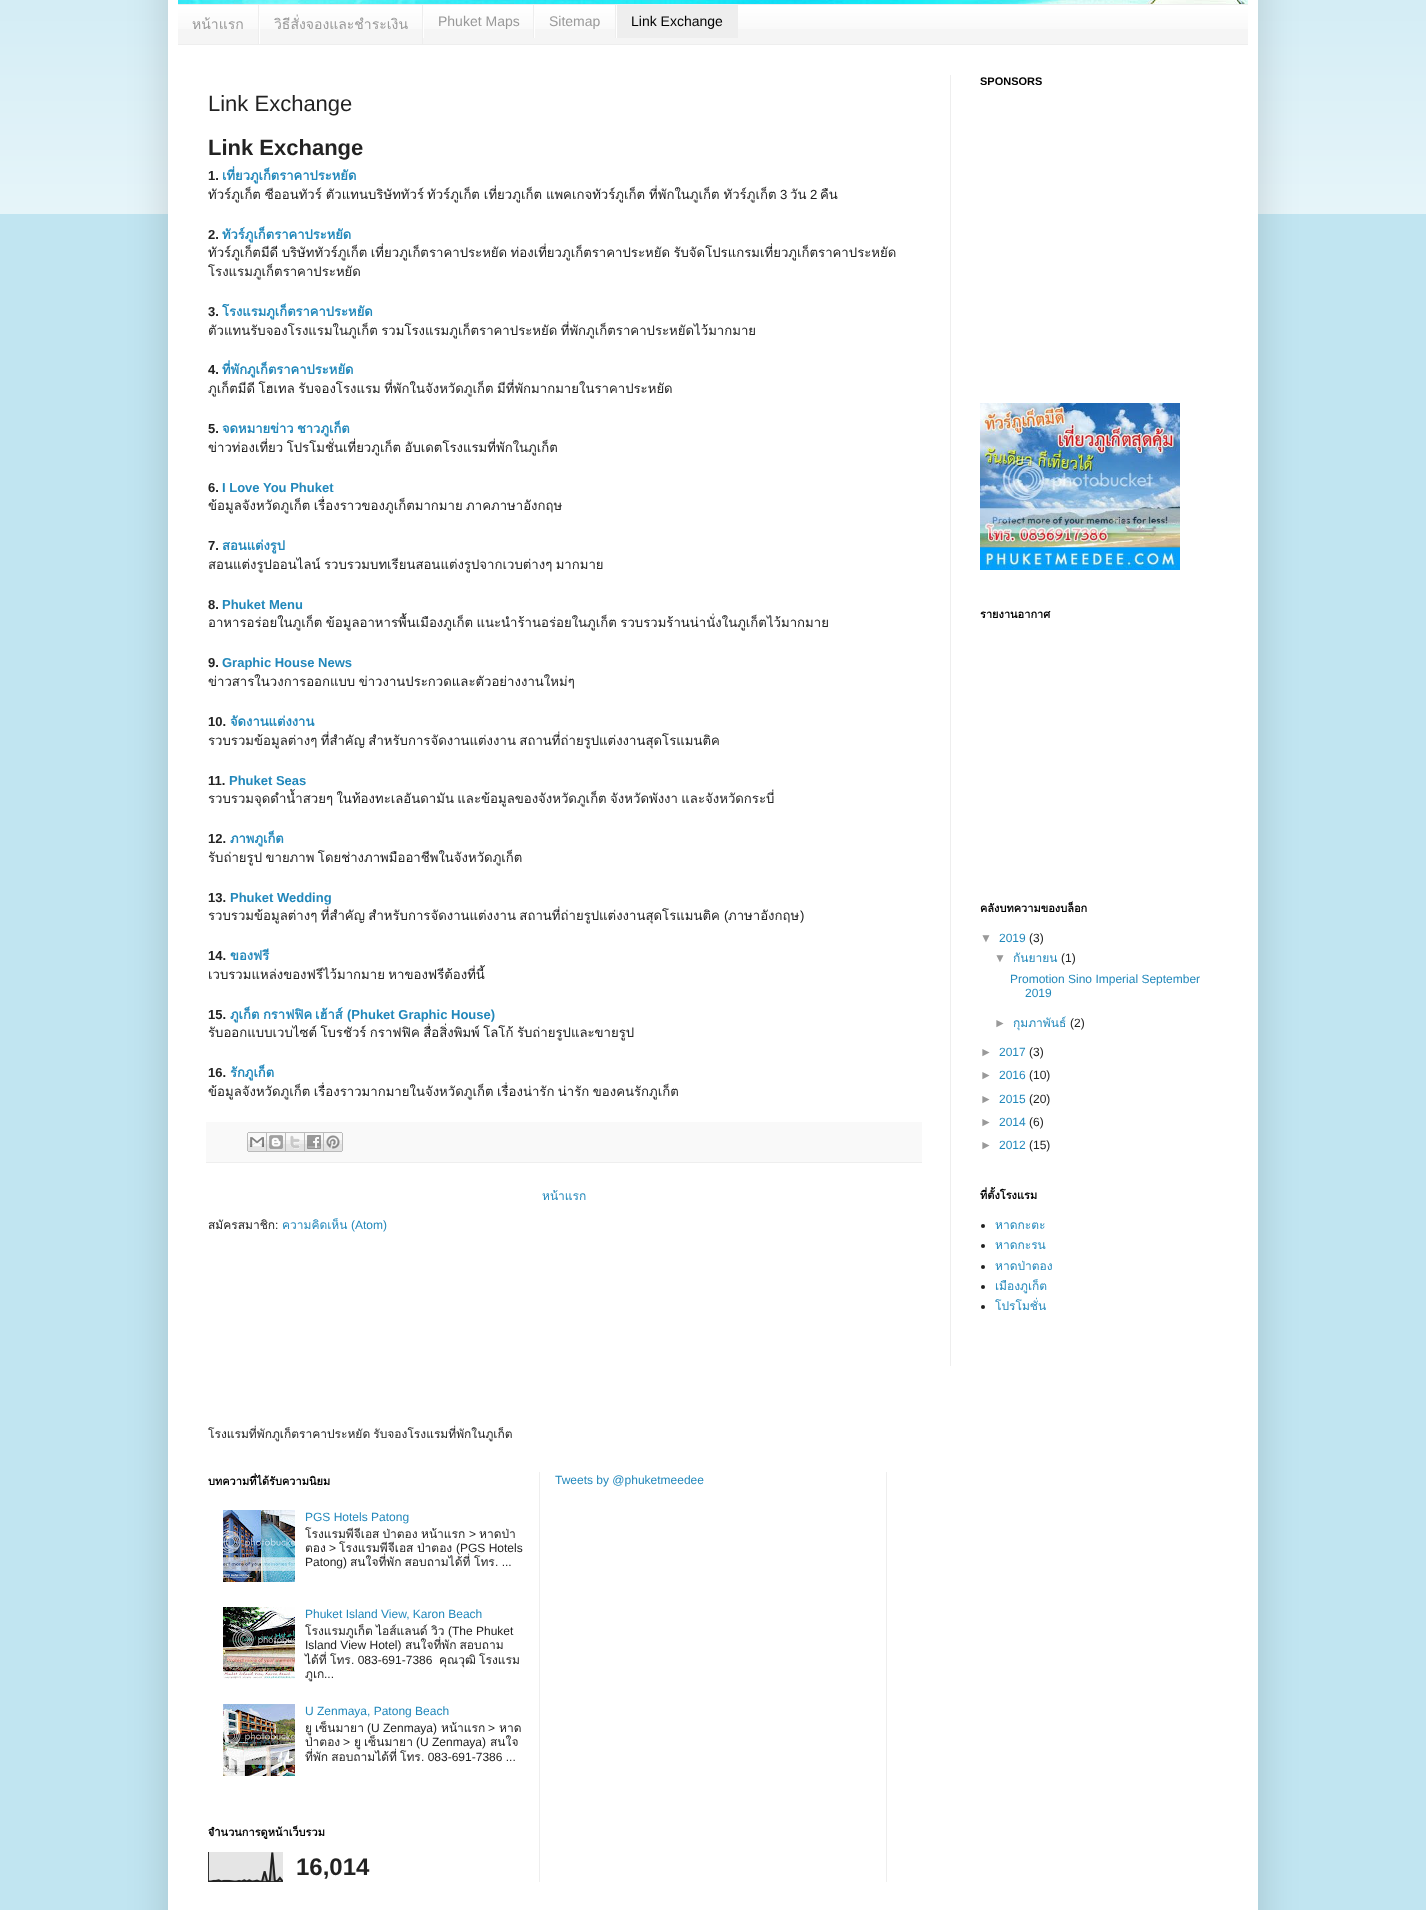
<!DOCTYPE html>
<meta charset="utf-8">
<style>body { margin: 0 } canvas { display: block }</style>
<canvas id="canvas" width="1426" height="1910"></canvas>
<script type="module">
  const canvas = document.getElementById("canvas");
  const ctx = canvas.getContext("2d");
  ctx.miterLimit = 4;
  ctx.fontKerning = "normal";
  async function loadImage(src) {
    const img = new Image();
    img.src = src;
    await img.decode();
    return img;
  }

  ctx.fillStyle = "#c1e5f1";
  ctx.fillRect(0, 0, 1426, 1910);
  ctx.drawImage(await loadImage("img1.png"), 0, 0, 1426, 214);
  ctx.fillStyle = "rgba(0, 0, 0, 0.15)";
  ctx.filter = "blur(20px)";
  ctx.beginPath();
  ctx.rect(168, -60, 1090, 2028);
  ctx.fill();
  ctx.filter = "none";
  ctx.fillStyle = "#ffffff";
  ctx.fillRect(168, 0, 1090, 1910);
  ctx.drawImage(await loadImage("img2.png"), 178, 0, 1070, 4);
  ctx.fillStyle = "#f5f5f5";
  ctx.fillRect(178, 6, 1070, 38);
  ctx.drawImage(await loadImage("img3.png"), 178, 5, 1070, 24);
  ctx.fillStyle = "#eeeeee";
  ctx.fillRect(178, 4, 1070, 1);
  ctx.fillRect(178, 44, 1070, 1);
  ctx.fillRect(258, 5, 1, 39);
  ctx.font = "14px Loma";
  ctx.fillStyle = "#999999";
  ctx.fillText("หน้าแรก", 192, 29);
  ctx.fillStyle = "#eeeeee";
  ctx.fillRect(422, 5, 1, 39);
  ctx.fillStyle = "#ffffff";
  ctx.fillRect(259, 16, 1, 28);
  ctx.fillStyle = "#999999";
  ctx.fillText("วิธีสั่งจองและชำระเงิน", 274, 29);
  ctx.fillStyle = "#eeeeee";
  ctx.fillRect(533, 5, 1, 33);
  ctx.fillStyle = "#ffffff";
  ctx.fillRect(423, 16, 1, 22);
  ctx.font = "14px Liberation Sans";
  ctx.fillStyle = "#999999";
  ctx.fillText("Phuket Maps", 438, 26);
  ctx.fillStyle = "#eeeeee";
  ctx.fillRect(615, 5, 1, 33);
  ctx.fillStyle = "#ffffff";
  ctx.fillRect(534, 16, 1, 22);
  ctx.fillStyle = "#999999";
  ctx.fillText("Sitemap", 549, 26);
  ctx.fillStyle = "#eeeeee";
  ctx.fillRect(617, 5, 121, 33);
  ctx.fillStyle = "#ffffff";
  ctx.fillRect(616, 16, 1, 22);
  ctx.fillStyle = "#000000";
  ctx.fillText("Link Exchange", 631, 26);
  ctx.fillStyle = "#eeeeee";
  ctx.fillRect(950, 75, 1, 1291);
  ctx.font = "22px Liberation Sans";
  ctx.fillStyle = "#222222";
  ctx.fillText("Link Exchange", 208, 111);
  ctx.font = "bold 22px Liberation Sans";
  ctx.fillText("Link Exchange", 208, 155);
  ctx.font = "bold 13px Liberation Sans";
  ctx.fillText("1.", 208, 180);
  ctx.font = "bold 13px Loma";
  ctx.fillStyle = "#2288bb";
  ctx.fillText("เที่ยวภูเก็ตราคาประหยัด", 222, 180);
  ctx.wordSpacing = "-0.5px";
  ctx.font = "13.2px Loma";
  ctx.fillStyle = "#222222";
  ctx.fillText("ทัวร์ภูเก็ต ซีออนทัวร์ ตัวแทนบริษัททัวร์", 208, 199);
  ctx.fillText("ทัวร์ภูเก็ต เที่ยวภูเก็ต แพคเกจทัวร์ภูเก็ต ที่พักในภูเก็ต ทัวร์ภูเก็ต", 427, 199);
  ctx.wordSpacing = "0px";
  ctx.font = "13.2px Liberation Sans";
  ctx.fillText("3", 780, 199);
  ctx.font = "13.2px Loma";
  ctx.fillText("วัน", 790, 199);
  ctx.font = "13.2px Liberation Sans";
  ctx.fillText("2", 810, 199);
  ctx.font = "13.2px Loma";
  ctx.fillText("คืน", 820, 199);
  ctx.font = "bold 13px Liberation Sans";
  ctx.fillText("2.", 208, 239);
  ctx.font = "bold 13px Loma";
  ctx.fillStyle = "#2288bb";
  ctx.fillText("ทัวร์ภูเก็ตราคาประหยัด", 222, 239);
  ctx.wordSpacing = "-1px";
  ctx.font = "13.2px Loma";
  ctx.fillStyle = "#222222";
  ctx.fillText("ทัวร์ภูเก็ตมีดี บริษัททัวร์ภูเก็ต เที่ยวภูเก็ตราคาประหยัด ท่องเที่ยวภูเก็ตราคาประหยัด รับจัดโปรแกรมเที่ยวภูเก็ตราคาประหยัด", 208, 257);
  ctx.wordSpacing = "0px";
  ctx.fillText("โรงแรมภูเก็ตราคาประหยัด", 208, 276);
  ctx.font = "bold 13px Liberation Sans";
  ctx.fillText("3.", 208, 316);
  ctx.font = "bold 13px Loma";
  ctx.fillStyle = "#2288bb";
  ctx.fillText("โรงแรมภูเก็ตราคาประหยัด", 222, 316);
  ctx.wordSpacing = "-1px";
  ctx.font = "13.2px Loma";
  ctx.fillStyle = "#222222";
  ctx.fillText("ตัวแทนรับจองโรงแรมในภูเก็ต รวมโรงแรมภูเก็ตราคาประหยัด ที่พักภูเก็ตราคาประหยัดไว้มากมาย", 208, 335);
  ctx.wordSpacing = "0px";
  ctx.font = "bold 13px Liberation Sans";
  ctx.fillText("4.", 208, 374);
  ctx.font = "bold 13px Loma";
  ctx.fillStyle = "#2288bb";
  ctx.fillText("ที่พักภูเก็ตราคาประหยัด", 222, 374);
  ctx.wordSpacing = "-1px";
  ctx.font = "13.2px Loma";
  ctx.fillStyle = "#222222";
  ctx.fillText("ภูเก็ตมีดี โฮเทล รับจองโรงแรม ที่พักในจังหวัดภูเก็ต มีที่พักมากมายในราคาประหยัด", 208, 393);
  ctx.wordSpacing = "0px";
  ctx.font = "bold 13px Liberation Sans";
  ctx.fillText("5.", 208, 433);
  ctx.wordSpacing = "-1px";
  ctx.font = "bold 13px Loma";
  ctx.fillStyle = "#2288bb";
  ctx.fillText("จดหมายข่าว ชาวภูเก็ต", 222, 433);
  ctx.font = "13.2px Loma";
  ctx.fillStyle = "#222222";
  ctx.fillText("ข่าวท่องเที่ยว โปรโมชั่นเที่ยวภูเก็ต อับเดตโรงแรมที่พักในภูเก็ต", 208, 452);
  ctx.wordSpacing = "0px";
  ctx.font = "bold 13px Liberation Sans";
  ctx.fillText("6.", 208, 492);
  ctx.fillStyle = "#2288bb";
  ctx.fillText("I Love You Phuket", 222, 492);
  ctx.wordSpacing = "-1px";
  ctx.font = "13.2px Loma";
  ctx.fillStyle = "#222222";
  ctx.fillText("ข้อมูลจังหวัดภูเก็ต เรื่องราวของภูเก็ตมากมาย ภาคภาษาอังกฤษ", 208, 510);
  ctx.wordSpacing = "0px";
  ctx.font = "bold 13px Liberation Sans";
  ctx.fillText("7.", 208, 550);
  ctx.font = "bold 13px Loma";
  ctx.fillStyle = "#2288bb";
  ctx.fillText("สอนแต่งรูป", 222, 550);
  ctx.wordSpacing = "-1px";
  ctx.font = "13.2px Loma";
  ctx.fillStyle = "#222222";
  ctx.fillText("สอนแต่งรูปออนไลน์ รวบรวมบทเรียนสอนแต่งรูปจากเวบต่างๆ มากมาย", 208, 569);
  ctx.wordSpacing = "0px";
  ctx.font = "bold 13px Liberation Sans";
  ctx.fillText("8.", 208, 609);
  ctx.fillStyle = "#2288bb";
  ctx.fillText("Phuket Menu", 222, 609);
  ctx.wordSpacing = "-1px";
  ctx.font = "13.2px Loma";
  ctx.fillStyle = "#222222";
  ctx.fillText("อาหารอร่อยในภูเก็ต ข้อมูลอาหารพื้นเมืองภูเก็ต แนะนำร้านอร่อยในภูเก็ต รวบรวมร้านน่านั่งในภูเก็ตไว้มากมาย", 208, 627);
  ctx.wordSpacing = "0px";
  ctx.font = "bold 13px Liberation Sans";
  ctx.fillText("9.", 208, 667);
  ctx.fillStyle = "#2288bb";
  ctx.fillText("Graphic House News", 222, 667);
  ctx.wordSpacing = "-1px";
  ctx.font = "13.2px Loma";
  ctx.fillStyle = "#222222";
  ctx.fillText("ข่าวสารในวงการออกแบบ ข่าวงานประกวดและตัวอย่างงานใหม่ๆ", 208, 686);
  ctx.wordSpacing = "0px";
  ctx.font = "bold 13px Liberation Sans";
  ctx.fillText("10.", 208, 726);
  ctx.font = "bold 13px Loma";
  ctx.fillStyle = "#2288bb";
  ctx.fillText("จัดงานแต่งงาน", 230, 726);
  ctx.wordSpacing = "-1px";
  ctx.font = "13.2px Loma";
  ctx.fillStyle = "#222222";
  ctx.fillText("รวบรวมข้อมูลต่างๆ ที่สำคัญ สำหรับการจัดงานแต่งงาน สถานที่ถ่ายรูปแต่งงานสุดโรแมนติค", 208, 745);
  ctx.wordSpacing = "0px";
  ctx.font = "bold 13px Liberation Sans";
  ctx.fillText("11.", 208, 785);
  ctx.fillStyle = "#2288bb";
  ctx.fillText("Phuket Seas", 229, 785);
  ctx.wordSpacing = "-1px";
  ctx.font = "13.2px Loma";
  ctx.fillStyle = "#222222";
  ctx.fillText("รวบรวมจุดดำน้ำสวยๆ ในท้องทะเลอันดามัน และข้อมูลของจังหวัดภูเก็ต จังหวัดพังงา และจังหวัดกระบี่", 208, 803);
  ctx.wordSpacing = "0px";
  ctx.font = "bold 13px Liberation Sans";
  ctx.fillText("12.", 208, 843);
  ctx.font = "bold 13px Loma";
  ctx.fillStyle = "#2288bb";
  ctx.fillText("ภาพภูเก็ต", 230, 843);
  ctx.wordSpacing = "-1px";
  ctx.font = "13.2px Loma";
  ctx.fillStyle = "#222222";
  ctx.fillText("รับถ่ายรูป ขายภาพ โดยช่างภาพมืออาชีพในจังหวัดภูเก็ต", 208, 862);
  ctx.wordSpacing = "0px";
  ctx.font = "bold 13px Liberation Sans";
  ctx.fillText("13.", 208, 902);
  ctx.fillStyle = "#2288bb";
  ctx.fillText("Phuket Wedding", 230, 902);
  ctx.wordSpacing = "-1px";
  ctx.font = "13.2px Loma";
  ctx.fillStyle = "#222222";
  ctx.fillText("รวบรวมข้อมูลต่างๆ ที่สำคัญ สำหรับการจัดงานแต่งงาน สถานที่ถ่ายรูปแต่งงานสุดโรแมนติค", 208, 920);
  ctx.wordSpacing = "0px";
  ctx.font = "13.2px Liberation Sans";
  ctx.fillText("(", 724, 920);
  ctx.font = "13.2px Loma";
  ctx.fillText("ภาษาอังกฤษ", 728, 920);
  ctx.font = "13.2px Liberation Sans";
  ctx.fillText(")", 800, 920);
  ctx.font = "bold 13px Liberation Sans";
  ctx.fillText("14.", 208, 960);
  ctx.font = "bold 13px Loma";
  ctx.fillStyle = "#2288bb";
  ctx.fillText("ของฟรี", 230, 960);
  ctx.wordSpacing = "-1px";
  ctx.font = "13.2px Loma";
  ctx.fillStyle = "#222222";
  ctx.fillText("เวบรวมแหล่งของฟรีไว้มากมาย หาของฟรีต้องที่นี้", 208, 979);
  ctx.wordSpacing = "0px";
  ctx.font = "bold 13px Liberation Sans";
  ctx.fillText("15.", 208, 1019);
  ctx.font = "bold 13px Loma";
  ctx.fillStyle = "#2288bb";
  ctx.fillText("ภูเก็ต", 230, 1019);
  ctx.fillText("กราฟฟิค", 263, 1019);
  ctx.fillText("เฮ้าส์", 315, 1019);
  ctx.font = "bold 13px Liberation Sans";
  ctx.fillText("(Phuket Graphic House)", 347, 1019);
  ctx.wordSpacing = "-1px";
  ctx.font = "13.2px Loma";
  ctx.fillStyle = "#222222";
  ctx.fillText("รับออกแบบเวบไซต์ โบรชัวร์ กราฟฟิค สื่อสิ่งพิมพ์ โลโก้ รับถ่ายรูปและขายรูป", 208, 1037);
  ctx.wordSpacing = "0px";
  ctx.font = "bold 13px Liberation Sans";
  ctx.fillText("16.", 208, 1077);
  ctx.font = "bold 13px Loma";
  ctx.fillStyle = "#2288bb";
  ctx.fillText("รักภูเก็ต", 230, 1077);
  ctx.wordSpacing = "-1px";
  ctx.font = "13.2px Loma";
  ctx.fillStyle = "#222222";
  ctx.fillText("ข้อมูลจังหวัดภูเก็ต เรื่องราวมากมายในจังหวัดภูเก็ต เรื่องน่ารัก น่ารัก ของคนรักภูเก็ต", 208, 1096);
  ctx.fillStyle = "#f9f9f9";
  ctx.fillRect(206, 1122, 716, 40);
  ctx.fillStyle = "#eeeeee";
  ctx.fillRect(206, 1162, 716, 1);
  ctx.drawImage(await loadImage("img4.png"), 247, 1132, 20, 20);
  ctx.drawImage(await loadImage("img5.png"), 267, 1132, 19, 20);
  ctx.drawImage(await loadImage("img6.png"), 286, 1132, 19, 20);
  ctx.drawImage(await loadImage("img7.png"), 305, 1132, 19, 20);
  ctx.drawImage(await loadImage("img8.png"), 324, 1132, 19, 20);
  ctx.wordSpacing = "0px";
  ctx.font = "12px Loma";
  ctx.fillStyle = "#2288bb";
  ctx.fillText("หน้าแรก", 542, 1200);
  ctx.fillStyle = "#222222";
  ctx.fillText("สมัครสมาชิก", 208, 1229);
  ctx.font = "12px Liberation Sans";
  ctx.fillText(":", 275, 1229);
  ctx.font = "12px Loma";
  ctx.fillStyle = "#2288bb";
  ctx.fillText("ความคิดเห็น", 282, 1229);
  ctx.font = "12px Liberation Sans";
  ctx.fillText("(Atom)", 351, 1229);
  ctx.font = "bold 11px Liberation Sans";
  ctx.fillStyle = "#000000";
  ctx.fillText("SPONSORS", 980, 85);
  ctx.drawImage(await loadImage("img9.png"), 980, 403, 200, 167);
  ctx.font = "bold 11px Loma";
  ctx.fillText("รายงานอากาศ", 980, 618);
  ctx.fillText("คลังบทความของบล็อก", 980, 912);
  ctx.font = "12px Liberation Sans";
  ctx.fillStyle = "#999999";
  ctx.fillText("▼", 980, 942);
  ctx.fillStyle = "#2288bb";
  ctx.fillText("2019", 999, 942);
  ctx.fillStyle = "#222222";
  ctx.fillText("(3)", 1029, 942);
  ctx.fillStyle = "#999999";
  ctx.fillText("▼", 994, 962);
  ctx.font = "12px Loma";
  ctx.fillStyle = "#2288bb";
  ctx.fillText("กันยายน", 1013, 962);
  ctx.font = "12px Liberation Sans";
  ctx.fillStyle = "#222222";
  ctx.fillText("(1)", 1061, 962);
  ctx.fillStyle = "#2288bb";
  ctx.fillText("Promotion Sino Imperial September", 1010, 983);
  ctx.fillText("2019", 1025, 997);
  ctx.fillStyle = "#999999";
  ctx.fillText("►", 994, 1027);
  ctx.font = "12px Loma";
  ctx.fillStyle = "#2288bb";
  ctx.fillText("กุมภาพันธ์", 1013, 1027);
  ctx.font = "12px Liberation Sans";
  ctx.fillStyle = "#222222";
  ctx.fillText("(2)", 1070, 1027);
  ctx.fillStyle = "#999999";
  ctx.fillText("►", 980, 1056);
  ctx.fillStyle = "#2288bb";
  ctx.fillText("2017", 999, 1056);
  ctx.fillStyle = "#222222";
  ctx.fillText("(3)", 1029, 1056);
  ctx.fillStyle = "#999999";
  ctx.fillText("►", 980, 1079);
  ctx.fillStyle = "#2288bb";
  ctx.fillText("2016", 999, 1079);
  ctx.fillStyle = "#222222";
  ctx.fillText("(10)", 1029, 1079);
  ctx.fillStyle = "#999999";
  ctx.fillText("►", 980, 1103);
  ctx.fillStyle = "#2288bb";
  ctx.fillText("2015", 999, 1103);
  ctx.fillStyle = "#222222";
  ctx.fillText("(20)", 1029, 1103);
  ctx.fillStyle = "#999999";
  ctx.fillText("►", 980, 1126);
  ctx.fillStyle = "#2288bb";
  ctx.fillText("2014", 999, 1126);
  ctx.fillStyle = "#222222";
  ctx.fillText("(6)", 1029, 1126);
  ctx.fillStyle = "#999999";
  ctx.fillText("►", 980, 1149);
  ctx.fillStyle = "#2288bb";
  ctx.fillText("2012", 999, 1149);
  ctx.fillStyle = "#222222";
  ctx.fillText("(15)", 1029, 1149);
  ctx.font = "bold 11px Loma";
  ctx.fillStyle = "#000000";
  ctx.fillText("ที่ตั้งโรงแรม", 980, 1199);
  ctx.fillStyle = "#222222";
  ctx.beginPath();
  ctx.arc(983, 1226, 2, 0, Math.PI * 2);
  ctx.fill();
  ctx.font = "12px Loma";
  ctx.fillStyle = "#2288bb";
  ctx.fillText("หาดกะตะ", 995, 1229);
  ctx.fillStyle = "#222222";
  ctx.beginPath();
  ctx.arc(983, 1246, 2, 0, Math.PI * 2);
  ctx.fill();
  ctx.fillStyle = "#2288bb";
  ctx.fillText("หาดกะรน", 995, 1249);
  ctx.fillStyle = "#222222";
  ctx.beginPath();
  ctx.arc(983, 1267, 2, 0, Math.PI * 2);
  ctx.fill();
  ctx.fillStyle = "#2288bb";
  ctx.fillText("หาดป่าตอง", 995, 1270);
  ctx.fillStyle = "#222222";
  ctx.beginPath();
  ctx.arc(983, 1287, 2, 0, Math.PI * 2);
  ctx.fill();
  ctx.fillStyle = "#2288bb";
  ctx.fillText("เมืองภูเก็ต", 995, 1290);
  ctx.fillStyle = "#222222";
  ctx.beginPath();
  ctx.arc(983, 1307, 2, 0, Math.PI * 2);
  ctx.fill();
  ctx.fillStyle = "#2288bb";
  ctx.fillText("โปรโมชั่น", 995, 1310);
  ctx.wordSpacing = "-1px";
  ctx.fillStyle = "#222222";
  ctx.fillText("โรงแรมที่พักภูเก็ตราคาประหยัด รับจองโรงแรมที่พักในภูเก็ต", 208, 1438);
  ctx.wordSpacing = "0px";
  ctx.font = "bold 11px Loma";
  ctx.fillStyle = "#000000";
  ctx.fillText("บทความที่ได้รับความนิยม", 208, 1485);
  ctx.drawImage(await loadImage("img10.png"), 223, 1510, 72, 72);
  ctx.font = "12px Liberation Sans";
  ctx.fillStyle = "#2288bb";
  ctx.fillText("PGS Hotels Patong", 305, 1521);
  ctx.wordSpacing = "-1px";
  ctx.font = "12px Loma";
  ctx.fillStyle = "#222222";
  ctx.fillText("โรงแรมพีจีเอส ป่าตอง", 305, 1538);
  ctx.wordSpacing = "0px";
  ctx.fillText("หน้าแรก", 421, 1538);
  ctx.font = "12px Liberation Sans";
  ctx.fillText(">", 469, 1538);
  ctx.font = "12px Loma";
  ctx.fillText("หาดป่า", 479, 1538);
  ctx.fillText("ตอง", 305, 1552);
  ctx.font = "12px Liberation Sans";
  ctx.fillText(">", 329, 1552);
  ctx.font = "12px Loma";
  ctx.fillText("โรงแรมพีจีเอส", 339, 1552);
  ctx.fillText("ป่าตอง", 417, 1552);
  ctx.font = "12px Liberation Sans";
  ctx.fillText("(PGS Hotels", 456, 1552);
  ctx.fillText("Patong)", 305, 1566);
  ctx.wordSpacing = "-1px";
  ctx.font = "12px Loma";
  ctx.fillText("สนใจที่พัก สอบถามได้ที่", 350, 1566);
  ctx.wordSpacing = "0px";
  ctx.fillText("โทร", 474, 1566);
  ctx.font = "12px Liberation Sans";
  ctx.fillText(". ...", 495, 1566);
  ctx.drawImage(await loadImage("img11.png"), 223, 1607, 72, 72);
  ctx.fillStyle = "#2288bb";
  ctx.fillText("Phuket Island View, Karon Beach", 305, 1618);
  ctx.font = "12px Loma";
  ctx.fillStyle = "#222222";
  ctx.fillText("โรงแรมภูเก็ต", 305, 1635);
  ctx.fillText("ไอส์แลนด์", 376, 1635);
  ctx.fillText("วิว", 431, 1635);
  ctx.font = "12px Liberation Sans";
  ctx.fillText("(The Phuket", 448, 1635);
  ctx.fillText("Island View Hotel)", 305, 1649);
  ctx.wordSpacing = "-1px";
  ctx.font = "12px Loma";
  ctx.fillText("สนใจที่พัก สอบถาม", 405, 1649);
  ctx.wordSpacing = "0px";
  ctx.fillText("ได้ที่", 305, 1664);
  ctx.fillText("โทร", 330, 1664);
  ctx.font = "12px Liberation Sans";
  ctx.fillText(". 083-691-7386", 351, 1664);
  ctx.font = "12px Loma";
  ctx.fillText("คุณวุฒิ", 439, 1664);
  ctx.fillText("โรงแรม", 479, 1664);
  ctx.fillText("ภูเก", 305, 1678);
  ctx.font = "12px Liberation Sans";
  ctx.fillText("...", 324, 1678);
  ctx.drawImage(await loadImage("img12.png"), 223, 1704, 72, 72);
  ctx.fillStyle = "#2288bb";
  ctx.fillText("U Zenmaya, Patong Beach", 305, 1715);
  ctx.font = "12px Loma";
  ctx.fillStyle = "#222222";
  ctx.fillText("ยู", 305, 1732);
  ctx.fillText("เซ็นมายา", 315, 1732);
  ctx.font = "12px Liberation Sans";
  ctx.fillText("(U Zenmaya)", 367, 1732);
  ctx.font = "12px Loma";
  ctx.fillText("หน้าแรก", 441, 1732);
  ctx.font = "12px Liberation Sans";
  ctx.fillText(">", 488, 1732);
  ctx.font = "12px Loma";
  ctx.fillText("หาด", 499, 1732);
  ctx.fillText("ป่าตอง", 305, 1746);
  ctx.font = "12px Liberation Sans";
  ctx.fillText(">", 343, 1746);
  ctx.font = "12px Loma";
  ctx.fillText("ยู", 354, 1746);
  ctx.fillText("เซ็นมายา", 364, 1746);
  ctx.font = "12px Liberation Sans";
  ctx.fillText("(U Zenmaya)", 416, 1746);
  ctx.font = "12px Loma";
  ctx.fillText("สนใจ", 490, 1746);
  ctx.wordSpacing = "-1px";
  ctx.fillText("ที่พัก สอบถามได้ที่", 305, 1761);
  ctx.wordSpacing = "0px";
  ctx.fillText("โทร", 400, 1761);
  ctx.font = "12px Liberation Sans";
  ctx.fillText(". 083-691-7386 ...", 421, 1761);
  ctx.font = "bold 11px Loma";
  ctx.fillStyle = "#000000";
  ctx.fillText("จำนวนการดูหน้าเว็บรวม", 208, 1836);
  ctx.drawImage(await loadImage("img13.png"), 208, 1852, 75, 30);
  ctx.font = "bold 24px Liberation Sans";
  ctx.fillStyle = "#222222";
  ctx.fillText("16,014", 296, 1875);
  ctx.fillStyle = "#eeeeee";
  ctx.fillRect(539, 1472, 1, 410);
  ctx.font = "12px Liberation Sans";
  ctx.fillStyle = "#2288bb";
  ctx.fillText("Tweets by @phuketmeedee", 555, 1484);
  ctx.fillStyle = "#eeeeee";
  ctx.fillRect(886, 1472, 1, 410);
</script>
